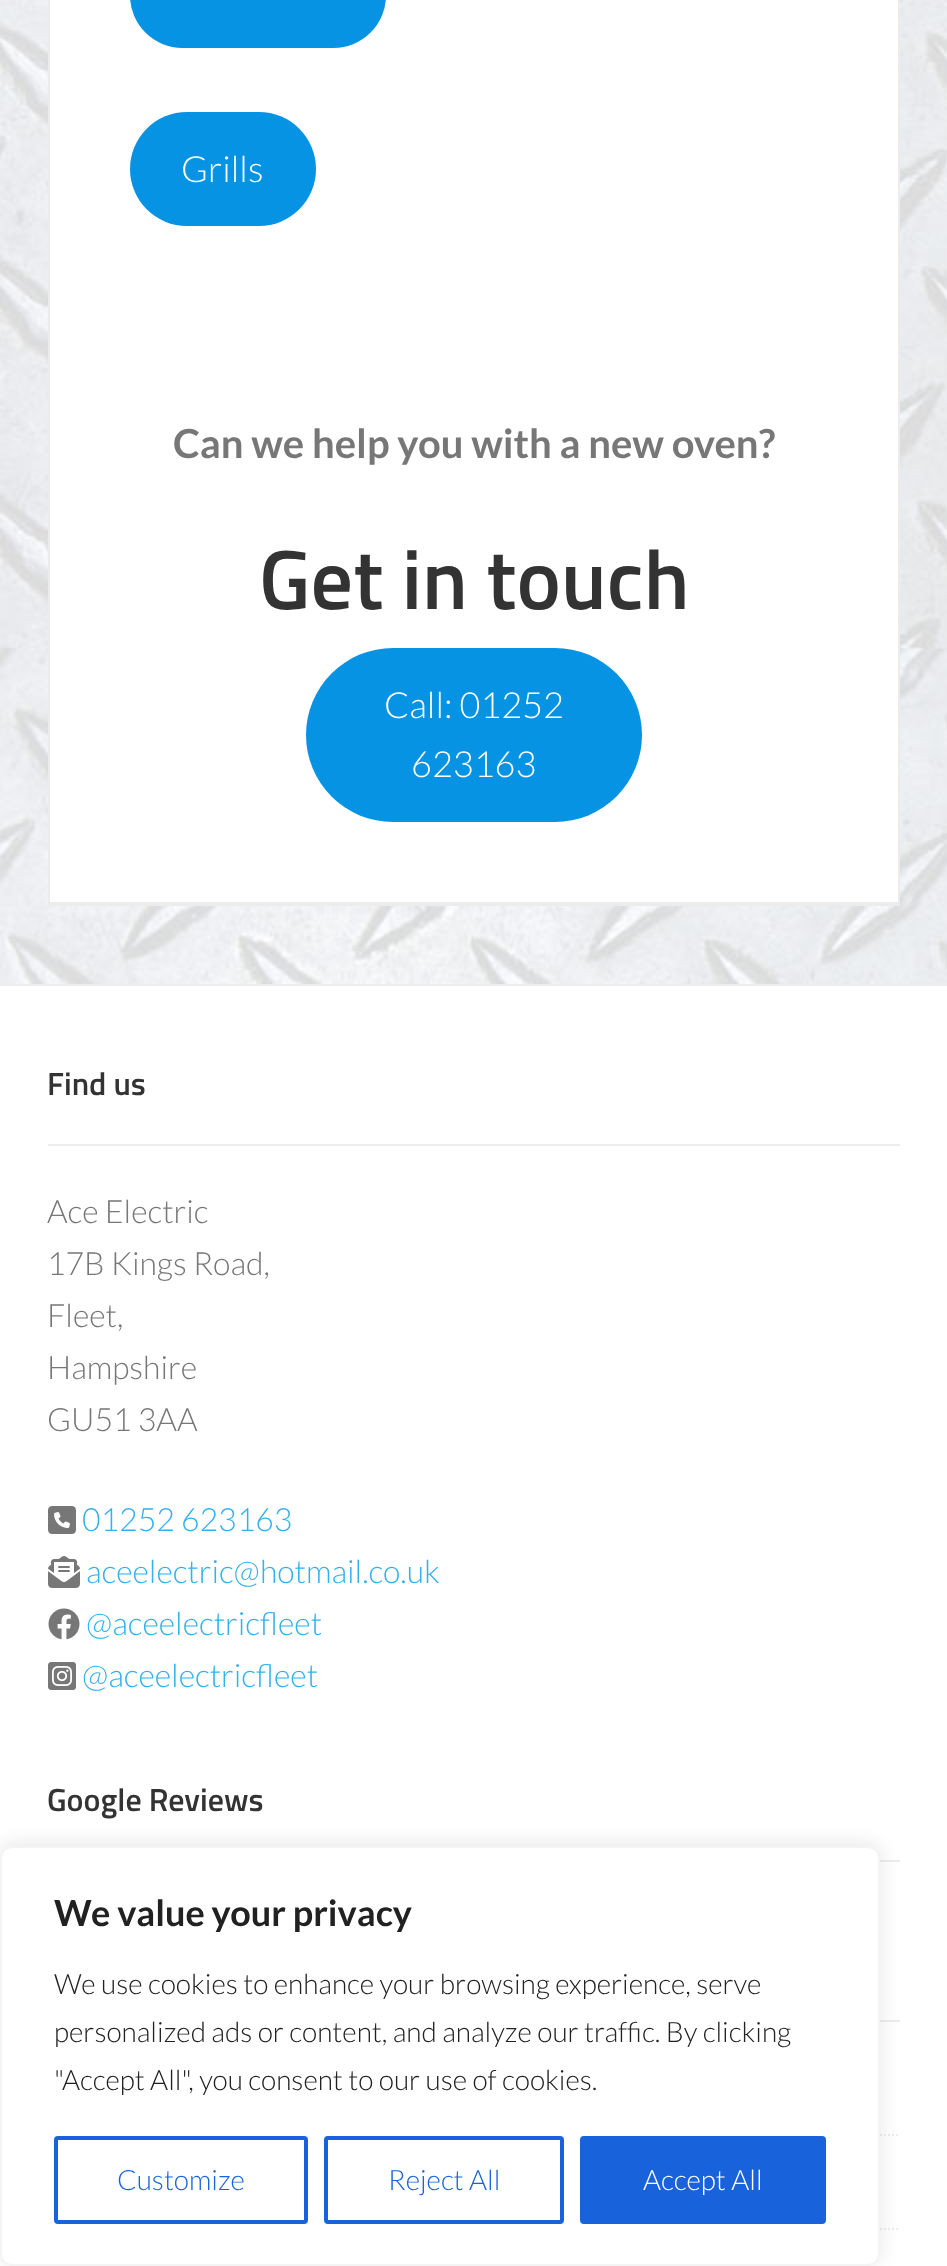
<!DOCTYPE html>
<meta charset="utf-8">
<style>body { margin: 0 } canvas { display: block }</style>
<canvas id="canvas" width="947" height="2266"></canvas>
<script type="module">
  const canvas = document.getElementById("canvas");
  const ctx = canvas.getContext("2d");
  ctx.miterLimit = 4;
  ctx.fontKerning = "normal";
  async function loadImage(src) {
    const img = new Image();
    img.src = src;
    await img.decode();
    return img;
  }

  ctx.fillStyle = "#ffffff";
  ctx.fillRect(0, 0, 947, 2266);
  ctx.drawImage(await loadImage("img1.png"), 0, 0, 947, 984);
  ctx.fillStyle = "#ececec";
  ctx.fillRect(48, 904, 852, 2);
  ctx.fillStyle = "#ffffff";
  ctx.beginPath();
  ctx.rect(49, -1, 850, 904);
  ctx.fill();
  ctx.strokeStyle = "#ececec";
  ctx.lineWidth = 2;
  ctx.stroke();
  ctx.fillStyle = "#0693e3";
  ctx.beginPath();
  ctx.roundRect(130, -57, 256, 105, 57);
  ctx.fill();
  ctx.beginPath();
  ctx.roundRect(130, 112, 186, 114, 57);
  ctx.fill();
  ctx.font = "300 36px Lato";
  ctx.fillStyle = "#ffffff";
  ctx.fillText("Grills", 181, 182);
  ctx.font = "bold 40px Lato";
  ctx.fillStyle = "#777777";
  ctx.fillText("Can we help you with a new oven?", 173, 458);
  ctx.font = "600 84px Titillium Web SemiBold";
  ctx.fillStyle = "#333333";
  ctx.fillText("Get in touch", 259, 609);
  ctx.fillStyle = "#0693e3";
  ctx.beginPath();
  ctx.roundRect(306, 648, 336, 174, 87);
  ctx.fill();
  ctx.font = "300 36px Lato";
  ctx.fillStyle = "#ffffff";
  ctx.fillText("Call: 01252", 384, 718);
  ctx.fillText("623163", 411, 777);
  ctx.fillStyle = "#ececec";
  ctx.fillRect(0, 984, 947, 2);
  ctx.fillRect(48, 1144, 852, 2);
  ctx.font = "600 32px Titillium Web SemiBold";
  ctx.fillStyle = "#333333";
  ctx.fillText("Find us", 47, 1095);
  ctx.font = "300 32px Lato";
  ctx.fillStyle = "#777777";
  ctx.fillText("Ace Electric", 47, 1223);
  ctx.fillText("17B Kings Road,", 47, 1275);
  ctx.fillText("Fleet,", 47, 1327);
  ctx.fillText("Hampshire", 47, 1379);
  ctx.fillText("GU51 3AA", 47, 1431);
  ctx.drawImage(await loadImage("img2.png"), 48, 1506, 28, 28);
  ctx.fillStyle = "#31b2ed";
  ctx.fillText("01252 623163", 82, 1531);
  ctx.drawImage(await loadImage("img3.png"), 48, 1556, 32, 32);
  ctx.fillText("aceelectric@hotmail.co.uk", 86, 1583);
  ctx.drawImage(await loadImage("img4.png"), 48, 1608, 32, 32);
  ctx.fillText("@aceelectricfleet", 86, 1635);
  ctx.drawImage(await loadImage("img5.png"), 48, 1662, 28, 28);
  ctx.fillText("@aceelectricfleet", 82, 1687);
  ctx.fillStyle = "#ececec";
  ctx.fillRect(880, 1860, 20, 2);
  ctx.font = "600 32px Titillium Web SemiBold";
  ctx.fillStyle = "#333333";
  ctx.fillText("Google Reviews", 47, 1811);
  ctx.fillStyle = "#ececec";
  ctx.fillRect(880, 2020, 20, 2);
  ctx.beginPath();
  ctx.moveTo(48, 2135);
  ctx.lineTo(900, 2135);
  ctx.setLineDash([2, 2]);
  ctx.stroke();
  ctx.beginPath();
  ctx.moveTo(48, 2229);
  ctx.lineTo(900, 2229);
  ctx.stroke();
  ctx.fillStyle = "rgba(172, 171, 171, 0.3)";
  ctx.filter = "blur(10px)";
  ctx.beginPath();
  ctx.roundRect(0, 1844, 880, 420, 12);
  ctx.fill();
  ctx.filter = "none";
  ctx.fillStyle = "#ffffff";
  ctx.beginPath();
  ctx.roundRect(1, 1847, 878, 418, 11);
  ctx.fill();
  ctx.strokeStyle = "#f4f4f4";
  ctx.setLineDash([]);
  ctx.stroke();
  ctx.font = "bold 36px Lato";
  ctx.fillStyle = "#212121";
  ctx.fillText("We value your privacy", 54, 1926);
  ctx.font = "300 28px Lato";
  ctx.fillText("We use cookies to enhance your browsing experience, serve", 54, 1994);
  ctx.fillText("personalized ads or content, and analyze our traffic. By clicking", 54, 2042);
  ctx.fillText("\"Accept All\", you consent to our use of cookies.", 54, 2090);
  ctx.beginPath();
  ctx.roundRect(56, 2138, 250, 84, 2);
  ctx.strokeStyle = "#1863dc";
  ctx.lineWidth = 4;
  ctx.stroke();
  ctx.fillStyle = "#1863dc";
  ctx.fillText("Customize", 117, 2190);
  ctx.beginPath();
  ctx.roundRect(326, 2138, 236, 84, 2);
  ctx.stroke();
  ctx.fillText("Reject All", 388, 2190);
  ctx.beginPath();
  ctx.roundRect(582, 2138, 242, 84, 2);
  ctx.fill();
  ctx.stroke();
  ctx.fillStyle = "#ffffff";
  ctx.fillText("Accept All", 643, 2190);
</script>
